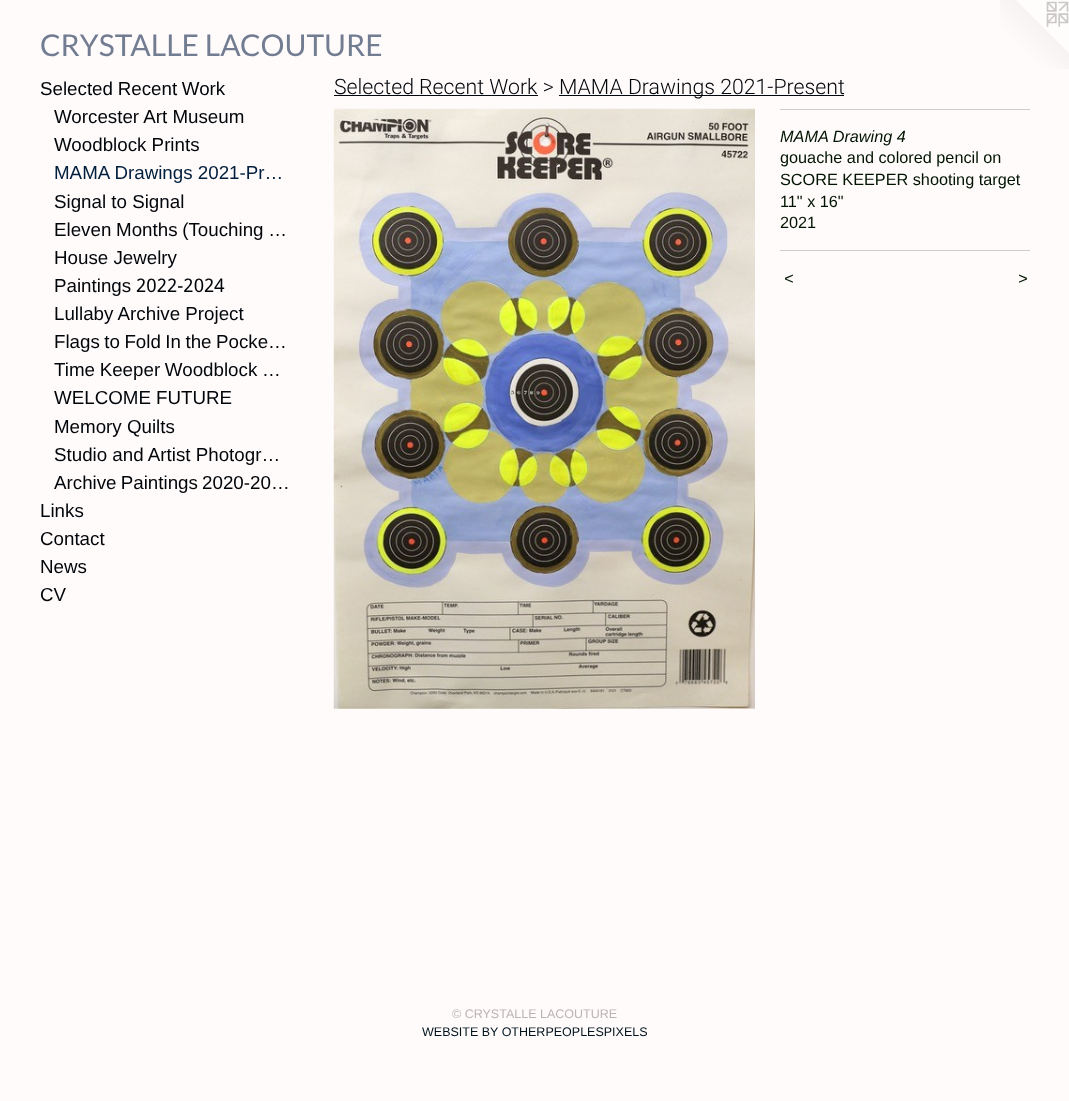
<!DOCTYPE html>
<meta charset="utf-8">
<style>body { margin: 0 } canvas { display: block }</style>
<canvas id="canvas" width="1069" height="1101"></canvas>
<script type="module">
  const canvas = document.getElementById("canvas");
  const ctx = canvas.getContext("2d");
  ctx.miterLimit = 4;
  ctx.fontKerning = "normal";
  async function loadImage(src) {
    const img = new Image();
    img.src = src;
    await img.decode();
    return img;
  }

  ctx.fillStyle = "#fffbfb";
  ctx.fillRect(0, 0, 1069, 1101);
  ctx.font = "30px Lato";
  ctx.fillStyle = "#727d92";
  ctx.fillText("CRYSTALLE LACOUTURE", 40, 56);
  ctx.drawImage(await loadImage("img1.png"), 1000, 0, 69, 69);
  ctx.wordSpacing = "-0.5px";
  ctx.font = "18.75px Liberation Sans";
  ctx.fillStyle = "#00050a";
  ctx.fillText("Selected Recent Work", 40, 95);
  ctx.wordSpacing = "0px";
  ctx.fillText("Worcester Art Museum", 54, 123);
  ctx.fillText("Woodblock Prints", 54, 151);
  ctx.fillStyle = "#001e3d";
  ctx.fillText("MAMA Drawings 2021-Pr…", 54, 179);
  ctx.fillStyle = "#00050a";
  ctx.fillText("Signal to Signal", 54, 208);
  ctx.wordSpacing = "-0.5px";
  ctx.fillText("Eleven Months (Touching …", 54, 236);
  ctx.wordSpacing = "0px";
  ctx.fillText("House Jewelry", 54, 264);
  ctx.fillText("Paintings", 54, 292);
  ctx.font = "18.75px Khmer";
  ctx.fillText("2022-2024", 136, 292);
  ctx.font = "18.75px Liberation Sans";
  ctx.fillText("Lullaby Archive Project", 54, 320);
  ctx.wordSpacing = "-0.75px";
  ctx.fillText("Flags to Fold In the Pocke…", 54, 348);
  ctx.wordSpacing = "-0.5px";
  ctx.fillText("Time Keeper Woodblock …", 54, 376);
  ctx.wordSpacing = "0px";
  ctx.fillText("WELCOME FUTURE", 54, 404);
  ctx.fillText("Memory Quilts", 54, 433);
  ctx.fillText("Studio and Artist Photogr…", 54, 461);
  ctx.wordSpacing = "-1px";
  ctx.fillText("Archive Paintings 2020-20…", 54, 489);
  ctx.wordSpacing = "0px";
  ctx.fillText("Links", 40, 517);
  ctx.fillText("Contact", 40, 545);
  ctx.fillText("News", 40, 573);
  ctx.fillText("CV", 40, 601);
  ctx.font = "300 21.25px Roboto";
  ctx.fillText("Selected Recent Work >", 334, 94);
  ctx.fillStyle = "#00070f";
  ctx.fillRect(334, 95, 204, 1);
  ctx.fillRect(559, 95, 285, 1);
  ctx.fillStyle = "#00050a";
  ctx.fillText("MAMA Drawings 2021-Present", 559, 94);
  ctx.drawImage(await loadImage("img2.png"), 333, 108, 422, 601);
  ctx.fillStyle = "#cccdc9";
  ctx.fillRect(780, 109, 250, 1);
  ctx.font = "italic 16.25px Liberation Sans";
  ctx.fillStyle = "#011301";
  ctx.fillText("MAMA Drawing 4", 780, 142);
  ctx.font = "16.25px Liberation Sans";
  ctx.fillText("gouache and colored pencil on", 780, 163);
  ctx.fillText("SCORE KEEPER shooting target", 780, 185);
  ctx.fillText("11\" x 16\"", 780, 207);
  ctx.fillText("2021", 780, 228);
  ctx.fillStyle = "#cccdc9";
  ctx.fillRect(780, 250, 250, 1);
  ctx.letterSpacing = "1px";
  ctx.font = "italic 16.25px Liberation Sans";
  ctx.fillStyle = "#011301";
  ctx.fillText("<", 784, 284);
  ctx.fillText(">", 1018, 284);
  ctx.letterSpacing = "0px";
  ctx.font = "12.5px Liberation Sans";
  ctx.fillStyle = "#bbb4b4";
  ctx.fillText("© CRYSTALLE LACOUTURE", 452, 1018);
  ctx.fillStyle = "#01141e";
  ctx.fillText("WEBSITE BY OTHERPEOPLESPIXELS", 422, 1036);
</script>
